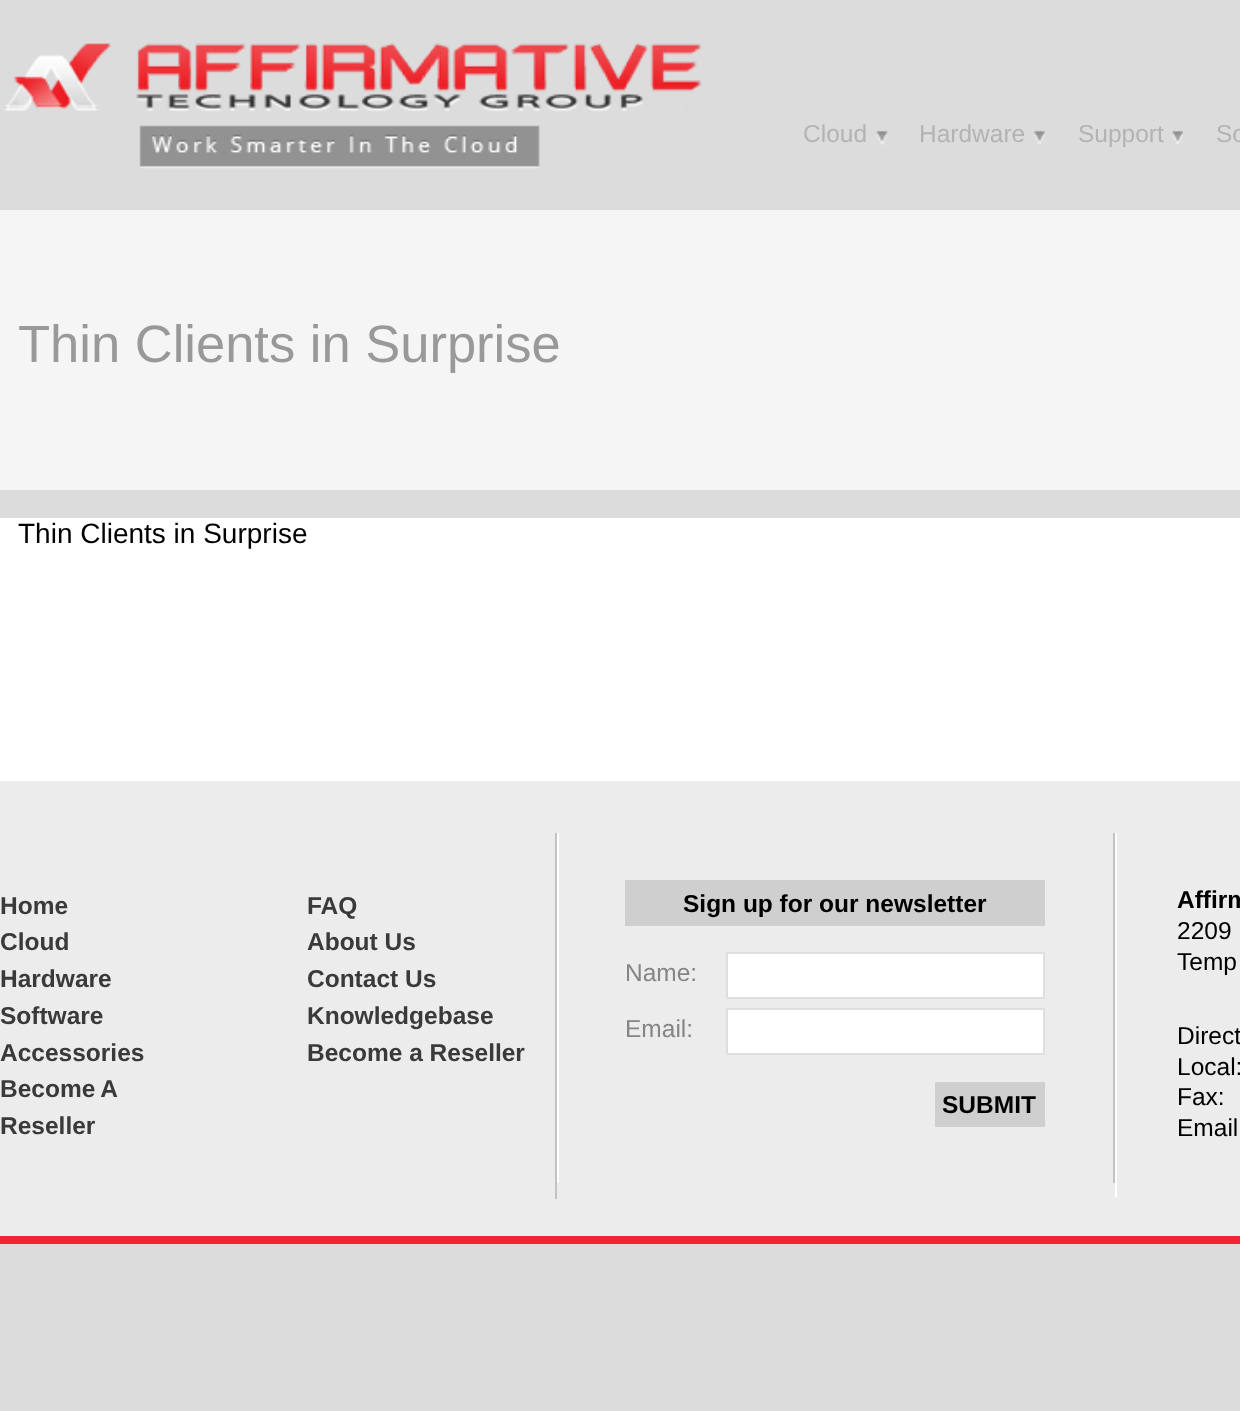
<!DOCTYPE html>
<meta charset="utf-8">
<style>body { margin: 0 } canvas { display: block }</style>
<canvas id="canvas" width="1240" height="1411"></canvas>
<script type="module">
  const canvas = document.getElementById("canvas");
  const ctx = canvas.getContext("2d");
  ctx.miterLimit = 4;
  ctx.fontKerning = "normal";
  async function loadImage(src) {
    const img = new Image();
    img.src = src;
    await img.decode();
    return img;
  }

  ctx.fillStyle = "#dcdcdc";
  ctx.fillRect(0, 0, 1240, 1411);
  ctx.drawImage(await loadImage("img1.png"), 4, 43, 698, 126);
  ctx.drawImage(await loadImage("img2.png"), 876, 130, 12, 15);
  ctx.font = "24.5px Liberation Sans";
  ctx.fillStyle = "#b3b3b3";
  ctx.fillText("Cloud", 803, 142);
  ctx.drawImage(await loadImage("img3.png"), 1034, 130, 11, 15);
  ctx.fillText("Hardware", 919, 142);
  ctx.drawImage(await loadImage("img4.png"), 1172, 130, 11, 15);
  ctx.fillText("Support", 1078, 142);
  ctx.fillText("So", 1216, 142);
  ctx.fillStyle = "#f5f5f5";
  ctx.fillRect(0, 210, 1240, 280);
  ctx.font = "52.5px Liberation Sans";
  ctx.fillStyle = "#999999";
  ctx.fillText("Thin Clients in Surprise", 18, 362);
  ctx.fillStyle = "#ffffff";
  ctx.fillRect(0, 518, 1240, 263);
  ctx.font = "28px Liberation Sans";
  ctx.fillStyle = "#000000";
  ctx.fillText("Thin Clients in Surprise", 18, 543);
  ctx.fillStyle = "#ececec";
  ctx.fillRect(0, 781, 1240, 455);
  ctx.fillStyle = "#f32233";
  ctx.fillRect(0, 1236, 1240, 8);
  ctx.fillStyle = "#c2c2c2";
  ctx.fillRect(555, 833, 2, 366);
  ctx.font = "bold 24.5px Liberation Sans";
  ctx.fillStyle = "#3a3a3a";
  ctx.fillText("Home", 0, 914);
  ctx.fillText("Cloud", 0, 950);
  ctx.fillText("Hardware", 0, 987);
  ctx.fillText("Software", 0, 1024);
  ctx.fillText("Accessories", 0, 1061);
  ctx.wordSpacing = "-1px";
  ctx.fillText("Become A", 0, 1097);
  ctx.wordSpacing = "0px";
  ctx.fillText("Reseller", 0, 1134);
  ctx.fillText("FAQ", 307, 914);
  ctx.fillText("About Us", 307, 950);
  ctx.fillText("Contact Us", 307, 987);
  ctx.fillText("Knowledgebase", 307, 1024);
  ctx.fillText("Become a Reseller", 307, 1061);
  ctx.fillStyle = "#c2c2c2";
  ctx.fillRect(1113, 833, 2, 350);
  ctx.fillStyle = "#ffffff";
  ctx.fillRect(557, 833, 2, 350);
  ctx.fillStyle = "#cfcfcf";
  ctx.fillRect(625, 880, 420, 46);
  ctx.fillStyle = "#000000";
  ctx.fillText("Sign up for our newsletter", 683, 912);
  ctx.font = "24.5px Liberation Sans";
  ctx.fillStyle = "#858585";
  ctx.fillText("Name:", 625, 981);
  ctx.fillStyle = "#ffffff";
  ctx.beginPath();
  ctx.rect(727, 953, 317, 45);
  ctx.fill();
  ctx.strokeStyle = "#dfdfdf";
  ctx.lineWidth = 2;
  ctx.stroke();
  ctx.fillStyle = "#858585";
  ctx.fillText("Email:", 625, 1037);
  ctx.fillStyle = "#ffffff";
  ctx.beginPath();
  ctx.rect(727, 1009, 317, 45);
  ctx.fill();
  ctx.stroke();
  ctx.fillStyle = "#cfcfcf";
  ctx.fillRect(935, 1082, 110, 45);
  ctx.font = "bold 24.5px Liberation Sans";
  ctx.fillStyle = "#000000";
  ctx.fillText("SUBMIT", 942, 1113);
  ctx.fillStyle = "#ffffff";
  ctx.fillRect(1115, 833, 2, 364);
  ctx.fillStyle = "#000000";
  ctx.fillText("Affirm", 1177, 908);
  ctx.font = "24.5px Liberation Sans";
  ctx.fillText("2209", 1177, 939);
  ctx.fillText("Temp", 1177, 970);
  ctx.fillText("Direct", 1177, 1044);
  ctx.fillText("Local:", 1177, 1075);
  ctx.fillText("Fax:", 1177, 1105);
  ctx.fillText("Email", 1177, 1136);
</script>
